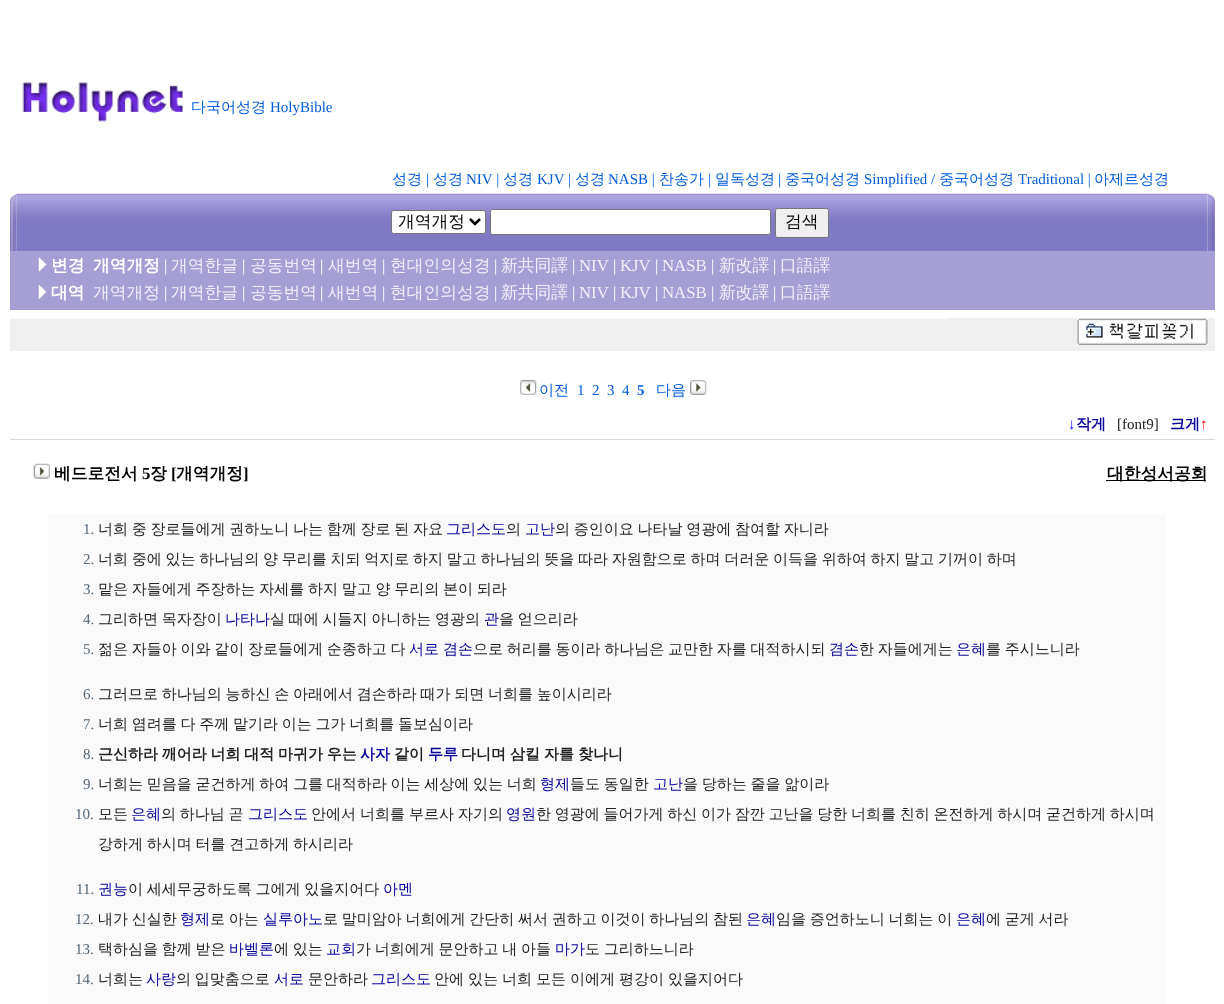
<!DOCTYPE html>
<meta charset="utf-8">
<style>body { margin: 0 } canvas { display: block }</style>
<canvas id="canvas" width="1224" height="1004"></canvas>
<script type="module">
  const canvas = document.getElementById("canvas");
  const ctx = canvas.getContext("2d");
  ctx.miterLimit = 4;
  ctx.fontKerning = "normal";
  async function loadImage(src) {
    const img = new Image();
    img.src = src;
    await img.decode();
    return img;
  }

  ctx.fillStyle = "#ffffff";
  ctx.fillRect(0, 0, 1224, 1004);
  ctx.drawImage(await loadImage("img1.png"), 22, 82, 161, 40);
  ctx.font = "500 15px WenQuanYi Zen Hei";
  ctx.fillStyle = "#005cda";
  ctx.fillText("다국어성경", 191, 112);
  ctx.font = "15px Liberation Serif";
  ctx.fillText("HolyBible", 270, 112);
  ctx.font = "500 15px WenQuanYi Zen Hei";
  ctx.fillText("성경", 392, 184);
  ctx.font = "15px Liberation Serif";
  ctx.fillText("|", 426, 184);
  ctx.font = "500 15px WenQuanYi Zen Hei";
  ctx.fillText("성경", 433, 184);
  ctx.font = "15px Liberation Serif";
  ctx.fillText("NIV |", 466, 184);
  ctx.font = "500 15px WenQuanYi Zen Hei";
  ctx.fillText("성경", 503, 184);
  ctx.font = "15px Liberation Serif";
  ctx.fillText("KJV |", 537, 184);
  ctx.font = "500 15px WenQuanYi Zen Hei";
  ctx.fillText("성경", 575, 184);
  ctx.font = "15px Liberation Serif";
  ctx.fillText("NASB |", 608, 184);
  ctx.font = "500 15px WenQuanYi Zen Hei";
  ctx.fillText("찬송가", 659, 184);
  ctx.font = "15px Liberation Serif";
  ctx.fillText("|", 708, 184);
  ctx.font = "500 15px WenQuanYi Zen Hei";
  ctx.fillText("일독성경", 715, 184);
  ctx.font = "15px Liberation Serif";
  ctx.fillText("|", 778, 184);
  ctx.font = "500 15px WenQuanYi Zen Hei";
  ctx.fillText("중국어성경", 785, 184);
  ctx.font = "15px Liberation Serif";
  ctx.fillText("Simplified /", 864, 184);
  ctx.font = "500 15px WenQuanYi Zen Hei";
  ctx.fillText("중국어성경", 939, 184);
  ctx.font = "15px Liberation Serif";
  ctx.fillText("Traditional |", 1018, 184);
  ctx.font = "500 15px WenQuanYi Zen Hei";
  ctx.fillText("아제르성경", 1094, 184);
  ctx.drawImage(await loadImage("img2.png"), 10, 193, 7, 58);
  ctx.drawImage(await loadImage("img3.png"), 16, 193, 1192, 58);
  ctx.fillStyle = "#ffffff";
  ctx.beginPath();
  ctx.roundRect(391.5, 210.5, 94, 23, 2);
  ctx.fill();
  ctx.strokeStyle = "#767676";
  ctx.stroke();
  ctx.beginPath();
  ctx.moveTo(470, 219);
  ctx.lineTo(475, 224);
  ctx.lineTo(480, 219);
  ctx.strokeStyle = "#000000";
  ctx.lineWidth = 2.5;
  ctx.stroke();
  ctx.font = "500 16.75px WenQuanYi Zen Hei";
  ctx.fillStyle = "#000000";
  ctx.fillText("개역개정", 398, 227);
  ctx.fillStyle = "#ffffff";
  ctx.beginPath();
  ctx.roundRect(490.5, 209.5, 280, 25, 2);
  ctx.fill();
  ctx.strokeStyle = "#767676";
  ctx.lineWidth = 1;
  ctx.stroke();
  ctx.fillStyle = "#efefef";
  ctx.beginPath();
  ctx.roundRect(775.5, 208.5, 53, 29, 2);
  ctx.fill();
  ctx.stroke();
  ctx.fillStyle = "#000000";
  ctx.fillText("검색", 785, 227);
  ctx.drawImage(await loadImage("img4.png"), 1207, 193, 8, 58);
  ctx.fillStyle = "#a69fd6";
  ctx.fillRect(10, 251, 1205, 59);
  ctx.drawImage(await loadImage("img5.png"), 38, 257, 9, 15);
  ctx.font = "bold 16.75px WenQuanYi Zen Hei";
  ctx.fillStyle = "#ffffff";
  ctx.fillText("변경", 51, 271);
  ctx.fillText("개역개정", 93, 271);
  ctx.font = "16.75px Liberation Serif";
  ctx.fillText("|", 164, 271);
  ctx.font = "500 16.75px WenQuanYi Zen Hei";
  ctx.fillStyle = "#efeef8";
  ctx.fillText("개역한글", 171, 271);
  ctx.font = "16.75px Liberation Serif";
  ctx.fillStyle = "#ffffff";
  ctx.fillText("|", 242, 271);
  ctx.font = "500 16.75px WenQuanYi Zen Hei";
  ctx.fillStyle = "#efeef8";
  ctx.fillText("공동번역", 250, 271);
  ctx.font = "16.75px Liberation Serif";
  ctx.fillStyle = "#ffffff";
  ctx.fillText("|", 320, 271);
  ctx.font = "500 16.75px WenQuanYi Zen Hei";
  ctx.fillStyle = "#efeef8";
  ctx.fillText("새번역", 328, 271);
  ctx.font = "16.75px Liberation Serif";
  ctx.fillStyle = "#ffffff";
  ctx.fillText("|", 382, 271);
  ctx.font = "500 16.75px WenQuanYi Zen Hei";
  ctx.fillStyle = "#efeef8";
  ctx.fillText("현대인의성경", 390, 271);
  ctx.font = "16.75px Liberation Serif";
  ctx.fillStyle = "#ffffff";
  ctx.fillText("|", 494, 271);
  ctx.font = "500 16.75px WenQuanYi Zen Hei";
  ctx.fillStyle = "#efeef8";
  ctx.fillText("新共同譯", 501, 271);
  ctx.font = "16.75px Liberation Serif";
  ctx.fillStyle = "#ffffff";
  ctx.fillText("|", 572, 271);
  ctx.fillStyle = "#efeef8";
  ctx.fillText("NIV", 579, 271);
  ctx.fillStyle = "#ffffff";
  ctx.fillText("|", 613, 271);
  ctx.fillStyle = "#efeef8";
  ctx.fillText("KJV", 620, 271);
  ctx.fillStyle = "#ffffff";
  ctx.fillText("|", 655, 271);
  ctx.fillStyle = "#efeef8";
  ctx.fillText("NASB", 662, 271);
  ctx.fillStyle = "#ffffff";
  ctx.fillText("|", 711, 271);
  ctx.font = "500 16.75px WenQuanYi Zen Hei";
  ctx.fillStyle = "#efeef8";
  ctx.fillText("新改譯", 719, 271);
  ctx.font = "16.75px Liberation Serif";
  ctx.fillStyle = "#ffffff";
  ctx.fillText("|", 773, 271);
  ctx.font = "500 16.75px WenQuanYi Zen Hei";
  ctx.fillStyle = "#efeef8";
  ctx.fillText("口語譯", 780, 271);
  ctx.drawImage(await loadImage("img6.png"), 38, 285, 9, 14);
  ctx.font = "bold 16.75px WenQuanYi Zen Hei";
  ctx.fillStyle = "#ffffff";
  ctx.fillText("대역", 51, 298);
  ctx.font = "500 16.75px WenQuanYi Zen Hei";
  ctx.fillStyle = "#efeef8";
  ctx.fillText("개역개정", 93, 298);
  ctx.font = "16.75px Liberation Serif";
  ctx.fillStyle = "#ffffff";
  ctx.fillText("|", 164, 298);
  ctx.font = "500 16.75px WenQuanYi Zen Hei";
  ctx.fillStyle = "#efeef8";
  ctx.fillText("개역한글", 171, 298);
  ctx.font = "16.75px Liberation Serif";
  ctx.fillStyle = "#ffffff";
  ctx.fillText("|", 242, 298);
  ctx.font = "500 16.75px WenQuanYi Zen Hei";
  ctx.fillStyle = "#efeef8";
  ctx.fillText("공동번역", 250, 298);
  ctx.font = "16.75px Liberation Serif";
  ctx.fillStyle = "#ffffff";
  ctx.fillText("|", 320, 298);
  ctx.font = "500 16.75px WenQuanYi Zen Hei";
  ctx.fillStyle = "#efeef8";
  ctx.fillText("새번역", 328, 298);
  ctx.font = "16.75px Liberation Serif";
  ctx.fillStyle = "#ffffff";
  ctx.fillText("|", 382, 298);
  ctx.font = "500 16.75px WenQuanYi Zen Hei";
  ctx.fillStyle = "#efeef8";
  ctx.fillText("현대인의성경", 390, 298);
  ctx.font = "16.75px Liberation Serif";
  ctx.fillStyle = "#ffffff";
  ctx.fillText("|", 494, 298);
  ctx.font = "500 16.75px WenQuanYi Zen Hei";
  ctx.fillStyle = "#efeef8";
  ctx.fillText("新共同譯", 501, 298);
  ctx.font = "16.75px Liberation Serif";
  ctx.fillStyle = "#ffffff";
  ctx.fillText("|", 572, 298);
  ctx.fillStyle = "#efeef8";
  ctx.fillText("NIV", 579, 298);
  ctx.fillStyle = "#ffffff";
  ctx.fillText("|", 613, 298);
  ctx.fillStyle = "#efeef8";
  ctx.fillText("KJV", 620, 298);
  ctx.fillStyle = "#ffffff";
  ctx.fillText("|", 655, 298);
  ctx.fillStyle = "#efeef8";
  ctx.fillText("NASB", 662, 298);
  ctx.fillStyle = "#ffffff";
  ctx.fillText("|", 711, 298);
  ctx.font = "500 16.75px WenQuanYi Zen Hei";
  ctx.fillStyle = "#efeef8";
  ctx.fillText("新改譯", 719, 298);
  ctx.font = "16.75px Liberation Serif";
  ctx.fillStyle = "#ffffff";
  ctx.fillText("|", 773, 298);
  ctx.font = "500 16.75px WenQuanYi Zen Hei";
  ctx.fillStyle = "#efeef8";
  ctx.fillText("口語譯", 780, 298);
  ctx.fillStyle = "#efefef";
  ctx.fillRect(10, 318, 1205, 33);
  ctx.drawImage(await loadImage("img7.png"), 10, 318, 938, 1);
  ctx.drawImage(await loadImage("img8.png"), 1077, 318, 131, 27);
  ctx.drawImage(await loadImage("img9.png"), 520, 380, 17, 15);
  ctx.font = "500 15px WenQuanYi Zen Hei";
  ctx.fillStyle = "#005cda";
  ctx.fillText("이전", 539, 395);
  ctx.font = "15px Liberation Serif";
  ctx.fillText("1", 577, 395);
  ctx.fillText("2", 592, 395);
  ctx.fillText("3", 607, 395);
  ctx.fillText("4", 622, 395);
  ctx.font = "bold 15px Liberation Serif";
  ctx.fillText("5", 637, 395);
  ctx.font = "500 15px WenQuanYi Zen Hei";
  ctx.fillText("다음", 656, 395);
  ctx.drawImage(await loadImage("img10.png"), 690, 380, 17, 15);
  ctx.font = "bold 15px Liberation Serif";
  ctx.fillStyle = "#0000ff";
  ctx.fillText("↓", 1068, 429);
  ctx.font = "bold 15px WenQuanYi Zen Hei";
  ctx.fillStyle = "#07009a";
  ctx.fillText("작게", 1076, 429);
  ctx.font = "15px Liberation Serif";
  ctx.fillStyle = "#202020";
  ctx.fillText("[font9]", 1117, 429);
  ctx.font = "bold 15px WenQuanYi Zen Hei";
  ctx.fillStyle = "#07009a";
  ctx.fillText("크게", 1170, 429);
  ctx.font = "bold 15px Liberation Serif";
  ctx.fillStyle = "#ff0000";
  ctx.fillText("↑", 1200, 429);
  ctx.fillStyle = "#d8d8d8";
  ctx.fillRect(10, 439, 1205, 1);
  ctx.drawImage(await loadImage("img11.png"), 33, 463, 17, 16);
  ctx.font = "bold 16.75px WenQuanYi Zen Hei";
  ctx.fillStyle = "#000000";
  ctx.fillText("베드로전서", 54, 479);
  ctx.font = "bold 16.75px Liberation Serif";
  ctx.fillText("5", 142, 479);
  ctx.font = "bold 16.75px WenQuanYi Zen Hei";
  ctx.fillText("장", 150, 479);
  ctx.font = "bold 16.75px Liberation Serif";
  ctx.fillText("[", 171, 479);
  ctx.font = "bold 16.75px WenQuanYi Zen Hei";
  ctx.fillText("개역개정", 176, 479);
  ctx.font = "bold 16.75px Liberation Serif";
  ctx.fillText("]", 243, 479);
  ctx.fillRect(1106, 480, 100, 1);
  ctx.font = "bold 16.75px WenQuanYi Zen Hei";
  ctx.fillText("대한성서공회", 1107, 479);
  ctx.fillStyle = "#fafafa";
  ctx.fillRect(48, 514, 1117, 490);
  ctx.font = "15px Liberation Serif";
  ctx.fillStyle = "#556777";
  ctx.fillText("1.", 83, 534);
  ctx.wordSpacing = "-0.75px";
  ctx.font = "500 15px WenQuanYi Zen Hei";
  ctx.fillStyle = "#202020";
  ctx.fillText("너희 중 장로들에게 권하노니 나는 함께 장로 된 자요", 98, 534);
  ctx.wordSpacing = "0px";
  ctx.fillStyle = "#07009a";
  ctx.fillText("그리스도", 446, 534);
  ctx.fillStyle = "#202020";
  ctx.fillText("의", 506, 534);
  ctx.fillStyle = "#07009a";
  ctx.fillText("고난", 525, 534);
  ctx.wordSpacing = "-0.75px";
  ctx.fillStyle = "#202020";
  ctx.fillText("의 증인이요 나타날 영광에 참여할 자니라", 555, 534);
  ctx.wordSpacing = "0px";
  ctx.font = "15px Liberation Serif";
  ctx.fillStyle = "#556777";
  ctx.fillText("2.", 83, 564);
  ctx.wordSpacing = "-0.75px";
  ctx.font = "500 15px WenQuanYi Zen Hei";
  ctx.fillStyle = "#202020";
  ctx.fillText("너희 중에 있는 하나님의 양 무리를 치되 억지로 하지 말고 하나님의 뜻을 따라 자원함으로 하며 더러운 이득을 위하여 하지 말고 기꺼이 하며", 98, 564);
  ctx.wordSpacing = "0px";
  ctx.font = "15px Liberation Serif";
  ctx.fillStyle = "#556777";
  ctx.fillText("3.", 83, 594);
  ctx.wordSpacing = "-0.75px";
  ctx.font = "500 15px WenQuanYi Zen Hei";
  ctx.fillStyle = "#202020";
  ctx.fillText("맡은 자들에게 주장하는 자세를 하지 말고 양 무리의 본이 되라", 98, 594);
  ctx.wordSpacing = "0px";
  ctx.font = "15px Liberation Serif";
  ctx.fillStyle = "#556777";
  ctx.fillText("4.", 83, 624);
  ctx.wordSpacing = "-0.75px";
  ctx.font = "500 15px WenQuanYi Zen Hei";
  ctx.fillStyle = "#202020";
  ctx.fillText("그리하면 목자장이", 98, 624);
  ctx.wordSpacing = "0px";
  ctx.fillStyle = "#07009a";
  ctx.fillText("나타나", 225, 624);
  ctx.wordSpacing = "-0.75px";
  ctx.fillStyle = "#202020";
  ctx.fillText("실 때에 시들지 아니하는 영광의", 270, 624);
  ctx.wordSpacing = "0px";
  ctx.fillStyle = "#07009a";
  ctx.fillText("관", 484, 624);
  ctx.wordSpacing = "-0.75px";
  ctx.fillStyle = "#202020";
  ctx.fillText("을 얻으리라", 499, 624);
  ctx.wordSpacing = "0px";
  ctx.font = "15px Liberation Serif";
  ctx.fillStyle = "#556777";
  ctx.fillText("5.", 83, 654);
  ctx.wordSpacing = "-0.75px";
  ctx.font = "500 15px WenQuanYi Zen Hei";
  ctx.fillStyle = "#202020";
  ctx.fillText("젊은 자들아 이와 같이 장로들에게 순종하고 다", 98, 654);
  ctx.wordSpacing = "0px";
  ctx.fillStyle = "#07009a";
  ctx.fillText("서로", 409, 654);
  ctx.fillText("겸손", 443, 654);
  ctx.wordSpacing = "-0.75px";
  ctx.fillStyle = "#202020";
  ctx.fillText("으로 허리를 동이라 하나님은 교만한 자를 대적하시되", 473, 654);
  ctx.wordSpacing = "0px";
  ctx.fillStyle = "#07009a";
  ctx.fillText("겸손", 829, 654);
  ctx.wordSpacing = "-0.75px";
  ctx.fillStyle = "#202020";
  ctx.fillText("한 자들에게는", 859, 654);
  ctx.wordSpacing = "0px";
  ctx.fillStyle = "#07009a";
  ctx.fillText("은혜", 956, 654);
  ctx.wordSpacing = "-0.75px";
  ctx.fillStyle = "#202020";
  ctx.fillText("를 주시느니라", 986, 654);
  ctx.wordSpacing = "0px";
  ctx.font = "15px Liberation Serif";
  ctx.fillStyle = "#556777";
  ctx.fillText("6.", 83, 699);
  ctx.wordSpacing = "-0.75px";
  ctx.font = "500 15px WenQuanYi Zen Hei";
  ctx.fillStyle = "#202020";
  ctx.fillText("그러므로 하나님의 능하신 손 아래에서 겸손하라 때가 되면 너희를 높이시리라", 98, 699);
  ctx.wordSpacing = "0px";
  ctx.font = "15px Liberation Serif";
  ctx.fillStyle = "#556777";
  ctx.fillText("7.", 83, 729);
  ctx.wordSpacing = "-0.75px";
  ctx.font = "500 15px WenQuanYi Zen Hei";
  ctx.fillStyle = "#202020";
  ctx.fillText("너희 염려를 다 주께 맡기라 이는 그가 너희를 돌보심이라", 98, 729);
  ctx.wordSpacing = "0px";
  ctx.font = "15px Liberation Serif";
  ctx.fillStyle = "#556777";
  ctx.fillText("8.", 83, 759);
  ctx.wordSpacing = "-0.75px";
  ctx.font = "bold 15px WenQuanYi Zen Hei";
  ctx.fillStyle = "#202020";
  ctx.fillText("근신하라 깨어라 너희 대적 마귀가 우는", 98, 759);
  ctx.wordSpacing = "0px";
  ctx.fillStyle = "#07009a";
  ctx.fillText("사자", 360, 759);
  ctx.fillStyle = "#202020";
  ctx.fillText("같이", 394, 759);
  ctx.fillStyle = "#07009a";
  ctx.fillText("두루", 428, 759);
  ctx.wordSpacing = "-0.5px";
  ctx.fillStyle = "#202020";
  ctx.fillText("다니며 삼킬 자를 찾나니", 461, 759);
  ctx.wordSpacing = "0px";
  ctx.font = "15px Liberation Serif";
  ctx.fillStyle = "#556777";
  ctx.fillText("9.", 83, 789);
  ctx.wordSpacing = "-0.75px";
  ctx.font = "500 15px WenQuanYi Zen Hei";
  ctx.fillStyle = "#202020";
  ctx.fillText("너희는 믿음을 굳건하게 하여 그를 대적하라 이는 세상에 있는 너희", 98, 789);
  ctx.wordSpacing = "0px";
  ctx.fillStyle = "#07009a";
  ctx.fillText("형제", 540, 789);
  ctx.wordSpacing = "-0.75px";
  ctx.fillStyle = "#202020";
  ctx.fillText("들도 동일한", 570, 789);
  ctx.wordSpacing = "0px";
  ctx.fillStyle = "#07009a";
  ctx.fillText("고난", 653, 789);
  ctx.wordSpacing = "-0.75px";
  ctx.fillStyle = "#202020";
  ctx.fillText("을 당하는 줄을 앎이라", 683, 789);
  ctx.wordSpacing = "0px";
  ctx.font = "15px Liberation Serif";
  ctx.fillStyle = "#556777";
  ctx.fillText("10.", 75, 819);
  ctx.font = "500 15px WenQuanYi Zen Hei";
  ctx.fillStyle = "#202020";
  ctx.fillText("모든", 98, 819);
  ctx.fillStyle = "#07009a";
  ctx.fillText("은혜", 131, 819);
  ctx.wordSpacing = "-0.75px";
  ctx.fillStyle = "#202020";
  ctx.fillText("의 하나님 곧", 161, 819);
  ctx.wordSpacing = "0px";
  ctx.fillStyle = "#07009a";
  ctx.fillText("그리스도", 248, 819);
  ctx.wordSpacing = "-0.5px";
  ctx.fillStyle = "#202020";
  ctx.fillText("안에서 너희를 부르사 자기의", 311, 819);
  ctx.wordSpacing = "0px";
  ctx.fillStyle = "#07009a";
  ctx.fillText("영원", 506, 819);
  ctx.wordSpacing = "-0.75px";
  ctx.fillStyle = "#202020";
  ctx.fillText("한 영광에 들어가게 하신 이가 잠깐 고난을 당한 너희를 친히 온전하게 하시며 굳건하게 하시며", 536, 819);
  ctx.fillText("강하게 하시며 터를 견고하게 하시리라", 98, 849);
  ctx.wordSpacing = "0px";
  ctx.font = "15px Liberation Serif";
  ctx.fillStyle = "#556777";
  ctx.fillText("11.", 76, 894);
  ctx.font = "500 15px WenQuanYi Zen Hei";
  ctx.fillStyle = "#07009a";
  ctx.fillText("권능", 98, 894);
  ctx.wordSpacing = "-0.75px";
  ctx.fillStyle = "#202020";
  ctx.fillText("이 세세무궁하도록 그에게 있을지어다", 128, 894);
  ctx.wordSpacing = "0px";
  ctx.fillStyle = "#07009a";
  ctx.fillText("아멘", 383, 894);
  ctx.font = "15px Liberation Serif";
  ctx.fillStyle = "#556777";
  ctx.fillText("12.", 75, 924);
  ctx.wordSpacing = "-0.75px";
  ctx.font = "500 15px WenQuanYi Zen Hei";
  ctx.fillStyle = "#202020";
  ctx.fillText("내가 신실한", 98, 924);
  ctx.wordSpacing = "0px";
  ctx.fillStyle = "#07009a";
  ctx.fillText("형제", 180, 924);
  ctx.wordSpacing = "-0.75px";
  ctx.fillStyle = "#202020";
  ctx.fillText("로 아는", 210, 924);
  ctx.wordSpacing = "0px";
  ctx.fillStyle = "#07009a";
  ctx.fillText("실루아노", 263, 924);
  ctx.wordSpacing = "-0.75px";
  ctx.fillStyle = "#202020";
  ctx.fillText("로 말미암아 너희에게 간단히 써서 권하고 이것이 하나님의 참된", 323, 924);
  ctx.wordSpacing = "0px";
  ctx.fillStyle = "#07009a";
  ctx.fillText("은혜", 746, 924);
  ctx.wordSpacing = "-0.75px";
  ctx.fillStyle = "#202020";
  ctx.fillText("임을 증언하노니 너희는 이", 776, 924);
  ctx.wordSpacing = "0px";
  ctx.fillStyle = "#07009a";
  ctx.fillText("은혜", 956, 924);
  ctx.wordSpacing = "-0.75px";
  ctx.fillStyle = "#202020";
  ctx.fillText("에 굳게 서라", 986, 924);
  ctx.wordSpacing = "0px";
  ctx.font = "15px Liberation Serif";
  ctx.fillStyle = "#556777";
  ctx.fillText("13.", 75, 954);
  ctx.wordSpacing = "-0.75px";
  ctx.font = "500 15px WenQuanYi Zen Hei";
  ctx.fillStyle = "#202020";
  ctx.fillText("택하심을 함께 받은", 98, 954);
  ctx.wordSpacing = "0px";
  ctx.fillStyle = "#07009a";
  ctx.fillText("바벨론", 229, 954);
  ctx.wordSpacing = "-0.75px";
  ctx.fillStyle = "#202020";
  ctx.fillText("에 있는", 274, 954);
  ctx.wordSpacing = "0px";
  ctx.fillStyle = "#07009a";
  ctx.fillText("교회", 326, 954);
  ctx.wordSpacing = "-0.75px";
  ctx.fillStyle = "#202020";
  ctx.fillText("가 너희에게 문안하고 내 아들", 356, 954);
  ctx.wordSpacing = "0px";
  ctx.fillStyle = "#07009a";
  ctx.fillText("마가", 555, 954);
  ctx.wordSpacing = "-0.75px";
  ctx.fillStyle = "#202020";
  ctx.fillText("도 그리하느니라", 585, 954);
  ctx.wordSpacing = "0px";
  ctx.font = "15px Liberation Serif";
  ctx.fillStyle = "#556777";
  ctx.fillText("14.", 75, 984);
  ctx.font = "500 15px WenQuanYi Zen Hei";
  ctx.fillStyle = "#202020";
  ctx.fillText("너희는", 98, 984);
  ctx.fillStyle = "#07009a";
  ctx.fillText("사랑", 146, 984);
  ctx.wordSpacing = "-0.75px";
  ctx.fillStyle = "#202020";
  ctx.fillText("의 입맞춤으로", 176, 984);
  ctx.wordSpacing = "0px";
  ctx.fillStyle = "#07009a";
  ctx.fillText("서로", 274, 984);
  ctx.fillStyle = "#202020";
  ctx.fillText("문안하라", 308, 984);
  ctx.fillStyle = "#07009a";
  ctx.fillText("그리스도", 371, 984);
  ctx.wordSpacing = "-0.5px";
  ctx.fillStyle = "#202020";
  ctx.fillText("안에 있는 너희 모든 이에게 평강이 있을지어다", 434, 984);
</script>
